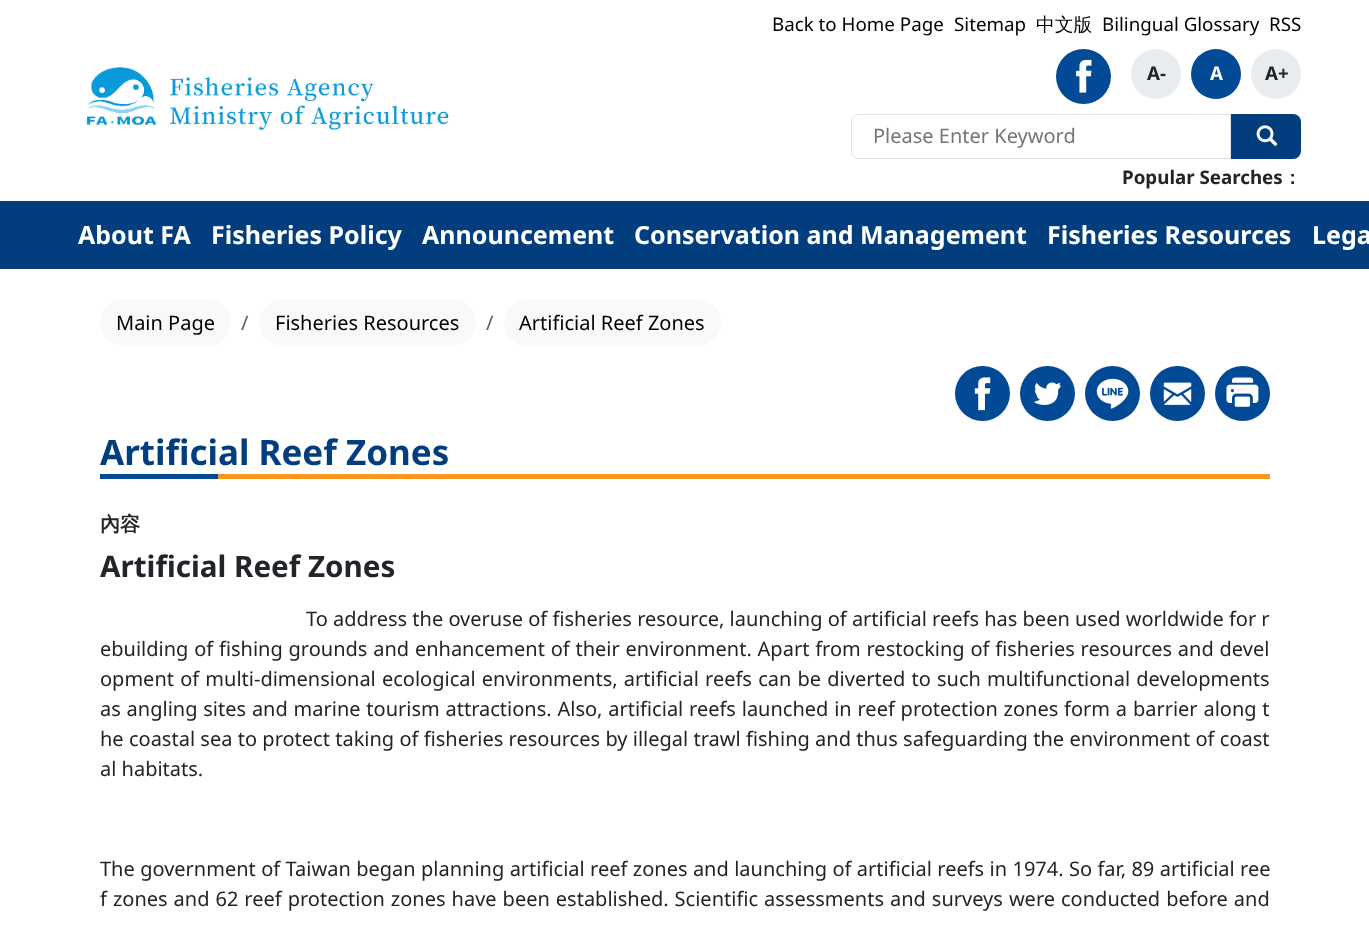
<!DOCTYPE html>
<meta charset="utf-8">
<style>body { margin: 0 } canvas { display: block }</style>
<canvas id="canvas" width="1369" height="930"></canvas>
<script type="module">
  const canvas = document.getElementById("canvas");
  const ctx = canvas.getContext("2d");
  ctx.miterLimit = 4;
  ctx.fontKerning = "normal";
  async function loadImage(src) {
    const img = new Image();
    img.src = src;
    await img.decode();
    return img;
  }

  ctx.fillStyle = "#ffffff";
  ctx.fillRect(0, 0, 1369, 930);
  ctx.drawImage(await loadImage("img1.png"), 86, 67, 363, 64);
  ctx.font = "18.75px Noto Sans";
  ctx.fillStyle = "#000000";
  ctx.fillText("Back to Home Page", 772, 31);
  ctx.fillText("Sitemap", 954, 31);
  ctx.font = "500 18.75px WenQuanYi Zen Hei";
  ctx.fillText("中文版", 1036, 31);
  ctx.font = "18.75px Noto Sans";
  ctx.fillText("Bilingual Glossary", 1102, 31);
  ctx.fillText("RSS", 1269, 31);
  ctx.fillStyle = "#024a96";
  ctx.beginPath();
  ctx.arc(1083.5, 76.5, 27.5, 0, Math.PI * 2);
  ctx.fill();
  ctx.drawImage(await loadImage("img2.png"), 1076, 59, 16, 34);
  ctx.fillStyle = "#e9ecef";
  ctx.beginPath();
  ctx.arc(1156, 74, 25, 0, Math.PI * 2);
  ctx.fill();
  ctx.font = "bold 18.75px Noto Sans";
  ctx.fillStyle = "#212529";
  ctx.fillText("A-", 1147, 80);
  ctx.fillStyle = "#024a96";
  ctx.beginPath();
  ctx.arc(1216, 74, 25, 0, Math.PI * 2);
  ctx.fill();
  ctx.fillStyle = "#ffffff";
  ctx.fillText("A", 1210, 80);
  ctx.fillStyle = "#e9ecef";
  ctx.beginPath();
  ctx.arc(1276, 74, 25, 0, Math.PI * 2);
  ctx.fill();
  ctx.fillStyle = "#212529";
  ctx.fillText("A+", 1265, 80);
  ctx.beginPath();
  ctx.roundRect(851.5, 114.5, 379, 44, [7.5, 0, 0, 7.5]);
  ctx.strokeStyle = "#dee2e6";
  ctx.stroke();
  ctx.font = "20px Noto Sans";
  ctx.fillStyle = "#757575";
  ctx.fillText("Please Enter Keyword", 873, 143);
  ctx.fillStyle = "#023e7d";
  ctx.beginPath();
  ctx.roundRect(1231, 114, 70, 45, [0, 8, 8, 0]);
  ctx.fill();
  ctx.drawImage(await loadImage("img3.png"), 1256, 125, 22, 21);
  ctx.font = "bold 18.75px Noto Sans";
  ctx.fillStyle = "#212529";
  ctx.fillText("Popular Searches", 1122, 184);
  ctx.font = "bold 18.75px WenQuanYi Zen Hei";
  ctx.fillText("：", 1283, 184);
  ctx.fillStyle = "#023e7d";
  ctx.fillRect(0, 201, 1369, 68);
  ctx.font = "bold 25px Noto Sans";
  ctx.fillStyle = "#ffffff";
  ctx.fillText("About FA", 78, 244);
  ctx.fillText("Fisheries Policy", 211, 244);
  ctx.fillText("Announcement", 422, 244);
  ctx.fillText("Conservation and Management", 634, 244);
  ctx.fillText("Fisheries Resources", 1047, 244);
  ctx.fillText("Lega", 1312, 244);
  ctx.fillStyle = "#f8f9fa";
  ctx.beginPath();
  ctx.roundRect(100, 299, 131, 47, 23.5);
  ctx.fill();
  ctx.font = "20px Noto Sans";
  ctx.fillStyle = "#000000";
  ctx.fillText("Main Page", 116, 330);
  ctx.fillStyle = "#595c5f";
  ctx.fillText("/", 241, 330);
  ctx.fillStyle = "#f8f9fa";
  ctx.beginPath();
  ctx.roundRect(259, 299, 217, 47, 23.5);
  ctx.fill();
  ctx.fillStyle = "#000000";
  ctx.fillText("Fisheries Resources", 275, 330);
  ctx.fillStyle = "#595c5f";
  ctx.fillText("/", 486, 330);
  ctx.fillStyle = "#f8f9fa";
  ctx.beginPath();
  ctx.roundRect(504, 299, 217, 47, 23.5);
  ctx.fill();
  ctx.fillStyle = "#000000";
  ctx.fillText("Artificial Reef Zones", 519, 330);
  ctx.fillStyle = "#024a96";
  ctx.beginPath();
  ctx.arc(982.5, 393.5, 27.5, 0, Math.PI * 2);
  ctx.fill();
  ctx.drawImage(await loadImage("img4.png"), 974, 377, 17, 34);
  ctx.beginPath();
  ctx.arc(1047.5, 393.5, 27.5, 0, Math.PI * 2);
  ctx.fill();
  ctx.drawImage(await loadImage("img5.png"), 1034, 382, 27, 23);
  ctx.beginPath();
  ctx.arc(1112.5, 393.5, 27.5, 0, Math.PI * 2);
  ctx.fill();
  ctx.drawImage(await loadImage("img6.png"), 1096, 378, 33, 31);
  ctx.beginPath();
  ctx.arc(1177.5, 393.5, 27.5, 0, Math.PI * 2);
  ctx.fill();
  ctx.drawImage(await loadImage("img7.png"), 1163, 382, 29, 23);
  ctx.beginPath();
  ctx.arc(1242.5, 393.5, 27.5, 0, Math.PI * 2);
  ctx.fill();
  ctx.drawImage(await loadImage("img8.png"), 1226, 377, 33, 30);
  ctx.font = "bold 35px Noto Sans";
  ctx.fillStyle = "#023e7d";
  ctx.fillText("Artificial Reef Zones", 100, 465);
  ctx.fillStyle = "#024a96";
  ctx.fillRect(100, 474, 118, 5);
  ctx.fillStyle = "#f8961e";
  ctx.fillRect(218, 474, 1052, 5);
  ctx.font = "bold 20px WenQuanYi Zen Hei";
  ctx.fillStyle = "#212529";
  ctx.fillText("內容", 100, 531);
  ctx.font = "bold 29.6px Noto Sans";
  ctx.fillText("Artificial Reef Zones", 100, 577);
  ctx.font = "20px Noto Sans";
  ctx.fillText("To address the overuse of fisheries resource, launching of artificial reefs has been used worldwide for r", 306, 626);
  ctx.wordSpacing = "0.6px";
  ctx.fillText("ebuilding of fishing grounds and enhancement of their environment. Apart from restocking of fisheries resources and devel", 100, 656);
  ctx.wordSpacing = "1px";
  ctx.fillText("opment of multi-dimensional ecological environments, artificial reefs can be diverted to such multifunctional developments", 100, 686);
  ctx.wordSpacing = "0.6px";
  ctx.fillText("as angling sites and marine tourism attractions. Also, artificial reefs launched in reef protection zones form a barrier along t", 100, 716);
  ctx.wordSpacing = "0.1px";
  ctx.fillText("he coastal sea to protect taking of fisheries resources by illegal trawl fishing and thus safeguarding the environment of coast", 100, 746);
  ctx.wordSpacing = "0px";
  ctx.fillText("al habitats.", 100, 776);
  ctx.wordSpacing = "0.2px";
  ctx.fillText("The government of Taiwan began planning artificial reef zones and launching of artificial reefs in 1974. So far, 89 artificial ree", 100, 876);
  ctx.wordSpacing = "0.8px";
  ctx.fillText("f zones and 62 reef protection zones have been established. Scientific assessments and surveys were conducted before and", 100, 906);
</script>
